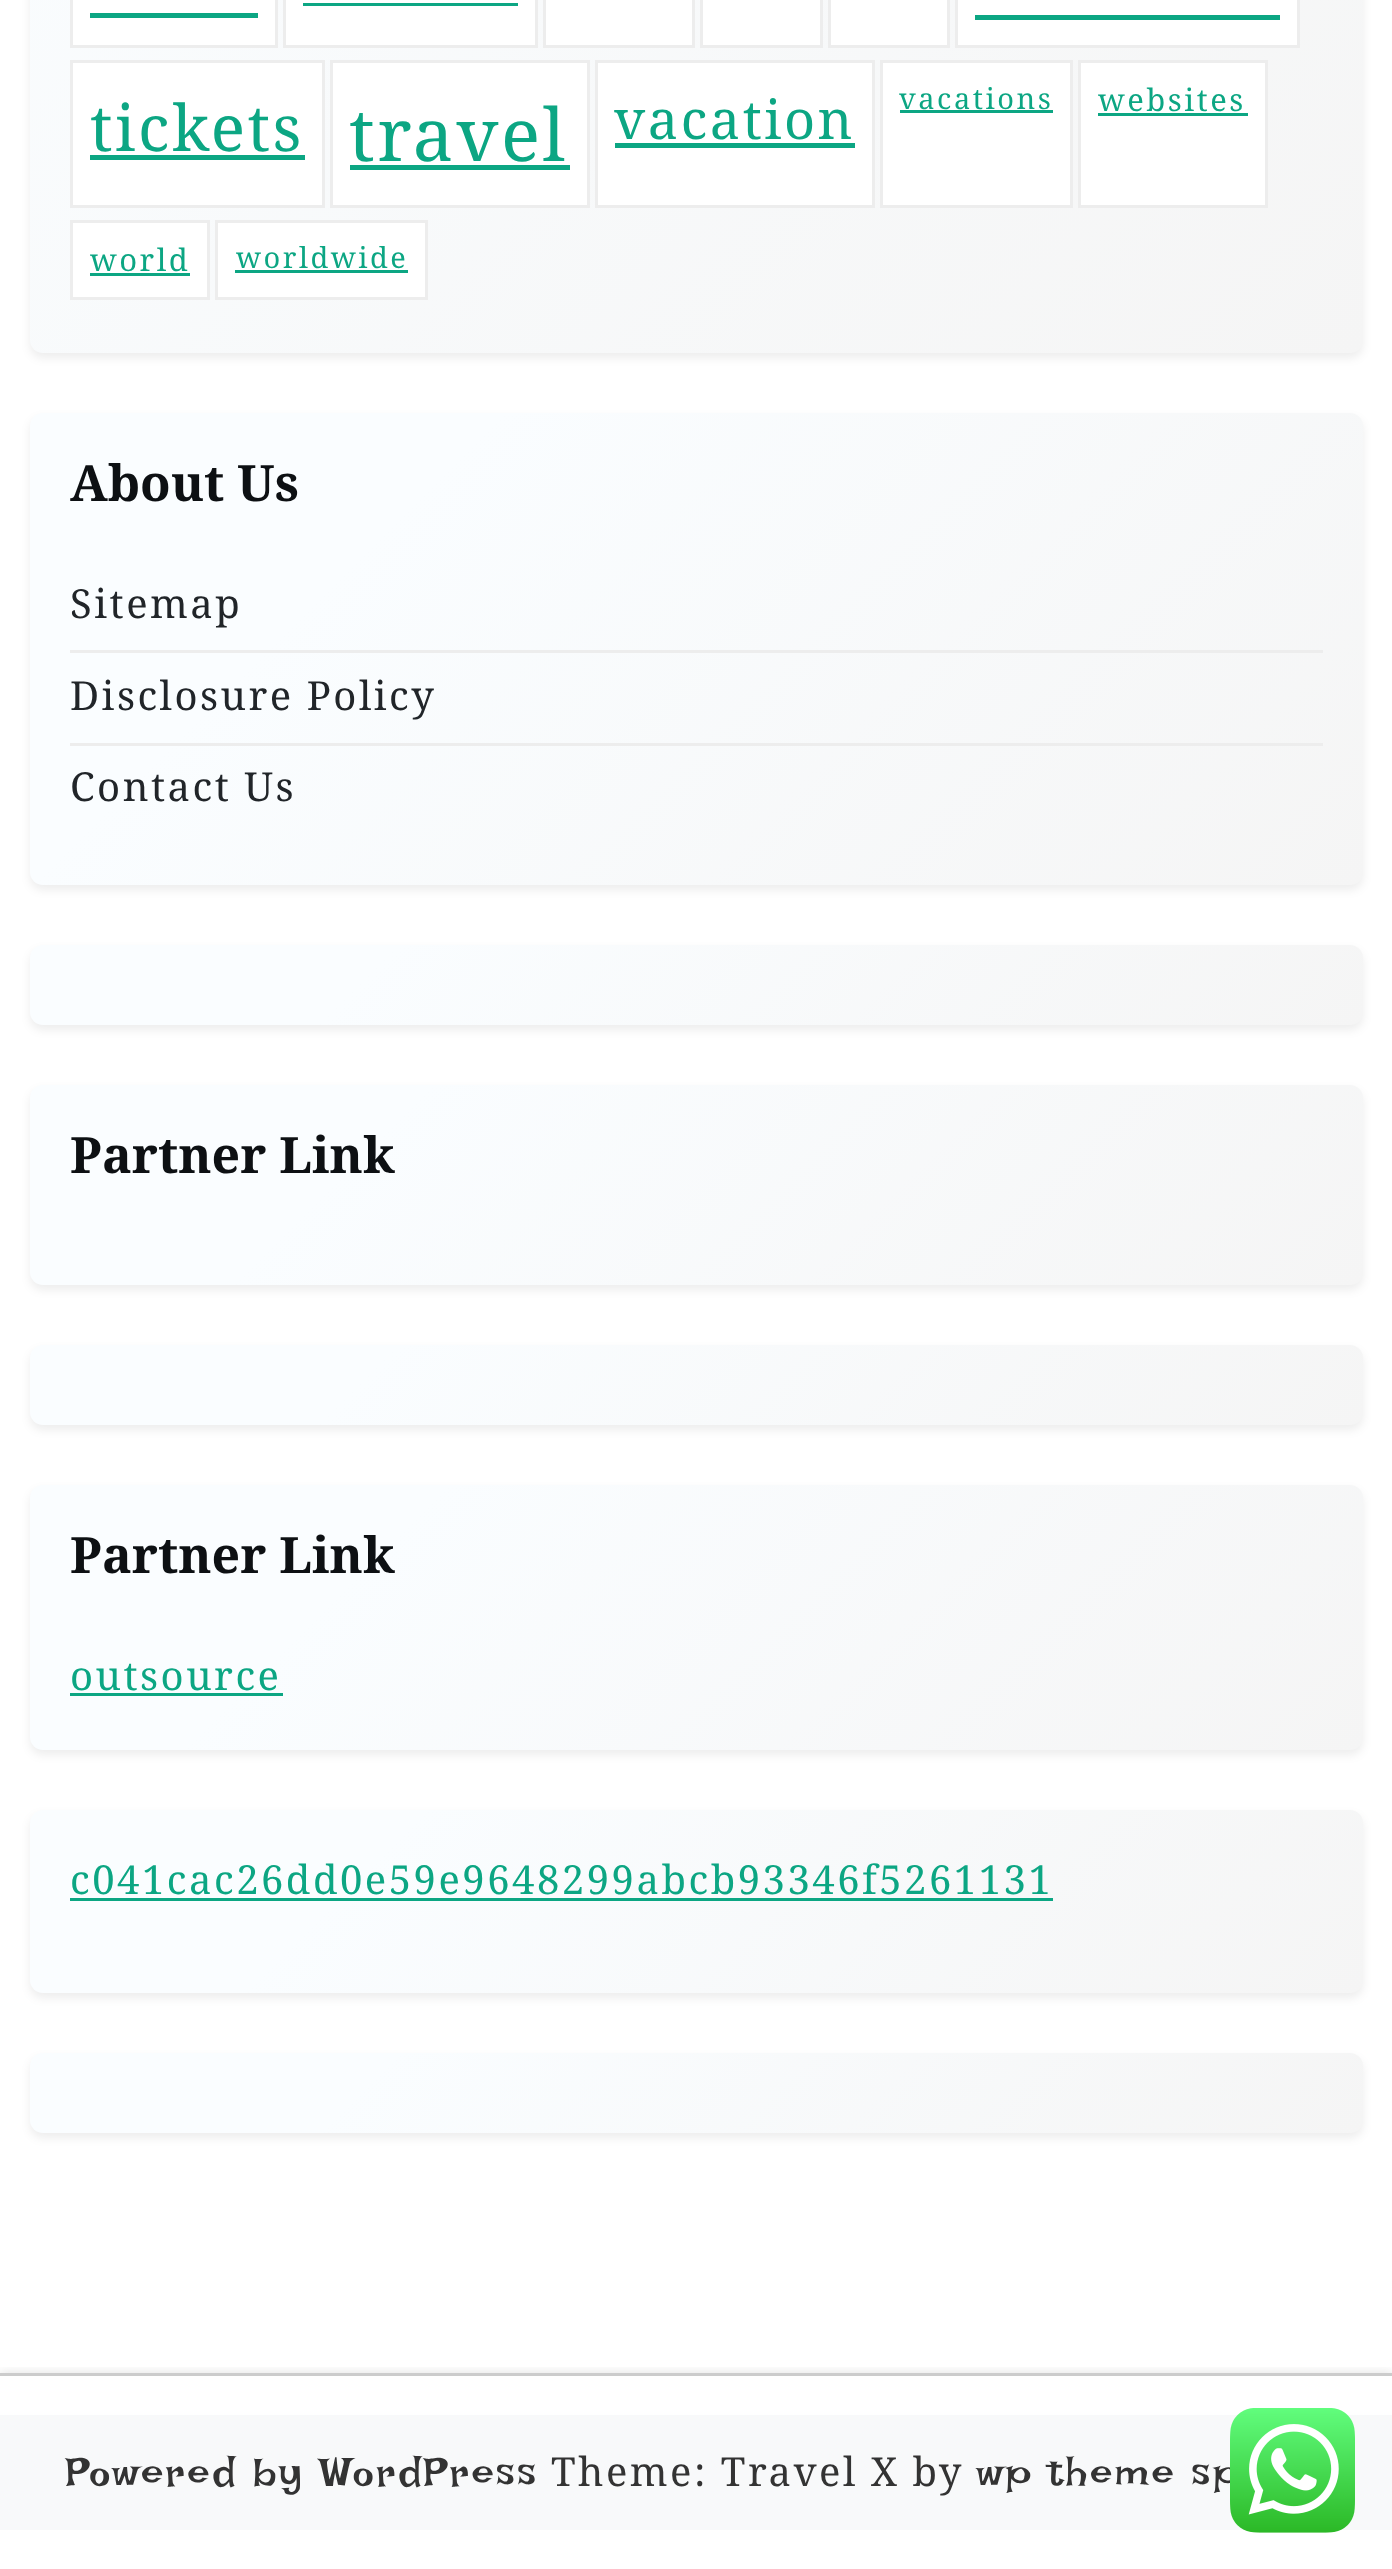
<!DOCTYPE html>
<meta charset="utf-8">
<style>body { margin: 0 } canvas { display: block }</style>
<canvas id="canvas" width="1392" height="2569"></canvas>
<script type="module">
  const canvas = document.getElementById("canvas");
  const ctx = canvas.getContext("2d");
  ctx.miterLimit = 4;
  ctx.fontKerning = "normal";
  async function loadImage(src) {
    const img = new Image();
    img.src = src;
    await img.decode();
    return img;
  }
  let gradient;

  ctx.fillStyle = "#ffffff";
  ctx.fillRect(0, 0, 1392, 2569);
  ctx.fillStyle = "rgba(0, 0, 0, 0.07)";
  ctx.filter = "blur(5px)";
  ctx.beginPath();
  ctx.roundRect(30, -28, 1333, 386, 13);
  ctx.fill();
  ctx.filter = "none";
  gradient = ctx.createLinearGradient(1368, 347, 25, -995);
  gradient.addColorStop(0, "#f5f5f5");
  gradient.addColorStop(0.74, "#fafdff");
  ctx.fillStyle = gradient;
  ctx.beginPath();
  ctx.roundRect(30, -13, 1333, 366, 13);
  ctx.fill();
  ctx.fillStyle = "#ffffff";
  ctx.beginPath();
  ctx.rect(71.5, -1.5, 205, 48);
  ctx.fill();
  ctx.strokeStyle = "#ededed";
  ctx.lineWidth = 3;
  ctx.stroke();
  ctx.fillStyle = "#0ca683";
  ctx.fillRect(90, 13, 168, 5);
  ctx.fillStyle = "#ffffff";
  ctx.beginPath();
  ctx.rect(284.5, -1.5, 252, 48);
  ctx.fill();
  ctx.stroke();
  ctx.fillStyle = "#0ca683";
  ctx.fillRect(303, 3, 215, 3);
  ctx.fillStyle = "#ffffff";
  ctx.beginPath();
  ctx.rect(544.5, -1.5, 149, 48);
  ctx.fill();
  ctx.stroke();
  ctx.beginPath();
  ctx.rect(701.5, -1.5, 120, 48);
  ctx.fill();
  ctx.stroke();
  ctx.beginPath();
  ctx.rect(829.5, -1.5, 119, 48);
  ctx.fill();
  ctx.stroke();
  ctx.beginPath();
  ctx.rect(956.5, -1.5, 342, 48);
  ctx.fill();
  ctx.stroke();
  ctx.fillStyle = "#0ca683";
  ctx.fillRect(975, 15, 305, 5);
  ctx.fillStyle = "#ffffff";
  ctx.beginPath();
  ctx.rect(71.5, 61.5, 252, 145);
  ctx.fill();
  ctx.stroke();
  ctx.letterSpacing = "2.5px";
  ctx.font = "64px Noto Serif";
  ctx.fillStyle = "#0ca683";
  ctx.fillText("tickets", 90, 151);
  ctx.fillRect(90, 155, 215, 5);
  ctx.fillStyle = "#ffffff";
  ctx.beginPath();
  ctx.rect(331.5, 61.5, 257, 145);
  ctx.fill();
  ctx.stroke();
  ctx.font = "73px Noto Serif";
  ctx.fillStyle = "#0ca683";
  ctx.fillText("travel", 349, 161);
  ctx.fillRect(350, 165, 220, 5);
  ctx.fillStyle = "#ffffff";
  ctx.beginPath();
  ctx.rect(596.5, 61.5, 277, 145);
  ctx.fill();
  ctx.stroke();
  ctx.font = "54px Noto Serif";
  ctx.fillStyle = "#0ca683";
  ctx.fillText("vacation", 614, 139);
  ctx.fillRect(615, 143, 240, 5);
  ctx.fillStyle = "#ffffff";
  ctx.beginPath();
  ctx.rect(881.5, 61.5, 190, 145);
  ctx.fill();
  ctx.stroke();
  ctx.font = "29px Noto Serif";
  ctx.fillStyle = "#0ca683";
  ctx.fillText("vacations", 899, 109);
  ctx.fillRect(900, 110, 153, 3);
  ctx.fillStyle = "#ffffff";
  ctx.beginPath();
  ctx.rect(1079.5, 61.5, 187, 145);
  ctx.fill();
  ctx.stroke();
  ctx.font = "31px Noto Serif";
  ctx.fillStyle = "#0ca683";
  ctx.fillText("websites", 1098, 111);
  ctx.fillRect(1098, 113, 150, 3);
  ctx.fillStyle = "#ffffff";
  ctx.beginPath();
  ctx.rect(71.5, 221.5, 137, 77);
  ctx.fill();
  ctx.stroke();
  ctx.fillStyle = "#0ca683";
  ctx.fillText("world", 90, 271);
  ctx.fillRect(90, 273, 100, 3);
  ctx.fillStyle = "#ffffff";
  ctx.beginPath();
  ctx.rect(216.5, 221.5, 210, 77);
  ctx.fill();
  ctx.stroke();
  ctx.font = "29px Noto Serif";
  ctx.fillStyle = "#0ca683";
  ctx.fillText("worldwide", 236, 268);
  ctx.fillRect(235, 270, 173, 3);
  ctx.fillStyle = "rgba(0, 0, 0, 0.07)";
  ctx.filter = "blur(5px)";
  ctx.beginPath();
  ctx.roundRect(30, 418, 1333, 472, 13);
  ctx.fill();
  ctx.filter = "none";
  gradient = ctx.createLinearGradient(1148, 1100, 245, 198);
  gradient.addColorStop(0, "#f5f5f5");
  gradient.addColorStop(0.74, "#fafdff");
  ctx.fillStyle = gradient;
  ctx.beginPath();
  ctx.roundRect(30, 413, 1333, 472, 13);
  ctx.fill();
  ctx.letterSpacing = "0px";
  ctx.font = "bold 50px Koh Santepheap";
  ctx.fillStyle = "#0d1013";
  ctx.fillText("About Us", 70, 501);
  ctx.fillStyle = "#ededed";
  ctx.fillRect(70, 650, 1253, 3);
  ctx.letterSpacing = "2.5px";
  ctx.font = "40px Noto Serif";
  ctx.fillStyle = "#212529";
  ctx.fillText("Sitemap", 70, 618);
  ctx.fillStyle = "#ededed";
  ctx.fillRect(70, 743, 1253, 3);
  ctx.fillStyle = "#212529";
  ctx.fillText("Disclosure Policy", 70, 710);
  ctx.fillText("Contact Us", 70, 801);
  ctx.fillStyle = "rgba(0, 0, 0, 0.07)";
  ctx.filter = "blur(5px)";
  ctx.beginPath();
  ctx.roundRect(30, 950, 1333, 80, 13);
  ctx.fill();
  ctx.filter = "none";
  gradient = ctx.createLinearGradient(1049, 1338, 343, 632);
  gradient.addColorStop(0, "#f5f5f5");
  gradient.addColorStop(0.74, "#fafdff");
  ctx.fillStyle = gradient;
  ctx.beginPath();
  ctx.roundRect(30, 945, 1333, 80, 13);
  ctx.fill();
  ctx.fillStyle = "rgba(0, 0, 0, 0.07)";
  ctx.filter = "blur(5px)";
  ctx.beginPath();
  ctx.roundRect(30, 1090, 1333, 200, 13);
  ctx.fill();
  ctx.filter = "none";
  gradient = ctx.createLinearGradient(1079, 1568, 313, 802);
  gradient.addColorStop(0, "#f5f5f5");
  gradient.addColorStop(0.74, "#fafdff");
  ctx.fillStyle = gradient;
  ctx.beginPath();
  ctx.roundRect(30, 1085, 1333, 200, 13);
  ctx.fill();
  ctx.letterSpacing = "0px";
  ctx.font = "bold 50px Koh Santepheap";
  ctx.fillStyle = "#0d1013";
  ctx.fillText("Partner Link", 70, 1173);
  ctx.fillStyle = "rgba(0, 0, 0, 0.07)";
  ctx.filter = "blur(5px)";
  ctx.beginPath();
  ctx.roundRect(30, 1350, 1333, 80, 13);
  ctx.fill();
  ctx.filter = "none";
  gradient = ctx.createLinearGradient(1049, 1738, 343, 1032);
  gradient.addColorStop(0, "#f5f5f5");
  gradient.addColorStop(0.74, "#fafdff");
  ctx.fillStyle = gradient;
  ctx.beginPath();
  ctx.roundRect(30, 1345, 1333, 80, 13);
  ctx.fill();
  ctx.fillStyle = "rgba(0, 0, 0, 0.07)";
  ctx.filter = "blur(5px)";
  ctx.beginPath();
  ctx.roundRect(30, 1490, 1333, 265, 13);
  ctx.fill();
  ctx.filter = "none";
  gradient = ctx.createLinearGradient(1096, 2017, 297, 1218);
  gradient.addColorStop(0, "#f5f5f5");
  gradient.addColorStop(0.74, "#fafdff");
  ctx.fillStyle = gradient;
  ctx.beginPath();
  ctx.roundRect(30, 1485, 1333, 265, 13);
  ctx.fill();
  ctx.fillStyle = "#0d1013";
  ctx.fillText("Partner Link", 70, 1573);
  ctx.letterSpacing = "2.5px";
  ctx.font = "40px Noto Serif";
  ctx.fillStyle = "#0ca683";
  ctx.fillText("outsource", 70, 1690);
  ctx.fillRect(70, 1693, 213, 3);
  ctx.fillStyle = "rgba(0, 0, 0, 0.07)";
  ctx.filter = "blur(5px)";
  ctx.beginPath();
  ctx.roundRect(30, 1815, 1333, 183, 13);
  ctx.fill();
  ctx.filter = "none";
  gradient = ctx.createLinearGradient(1075, 2280, 317, 1523);
  gradient.addColorStop(0, "#f5f5f5");
  gradient.addColorStop(0.74, "#fafdff");
  ctx.fillStyle = gradient;
  ctx.beginPath();
  ctx.roundRect(30, 1810, 1333, 183, 13);
  ctx.fill();
  ctx.fillStyle = "#0ca683";
  ctx.fillText("c041cac26dd0e59e9648299abcb93346f5261131", 70, 1894);
  ctx.fillRect(70, 1898, 983, 3);
  ctx.fillStyle = "rgba(0, 0, 0, 0.07)";
  ctx.filter = "blur(5px)";
  ctx.beginPath();
  ctx.roundRect(30, 2058, 1333, 80, 13);
  ctx.fill();
  ctx.filter = "none";
  gradient = ctx.createLinearGradient(1049, 2446, 343, 1739);
  gradient.addColorStop(0, "#f5f5f5");
  gradient.addColorStop(0.74, "#fafdff");
  ctx.fillStyle = gradient;
  ctx.beginPath();
  ctx.roundRect(30, 2053, 1333, 80, 13);
  ctx.fill();
  ctx.save();
  ctx.beginPath();
  ctx.rect(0, 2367, 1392, 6);
  ctx.clip();
  ctx.fillStyle = "rgba(0, 0, 0, 0.12)";
  ctx.filter = "blur(6px)";
  ctx.beginPath();
  ctx.rect(0, 2373, 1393, 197);
  ctx.fill();
  ctx.filter = "none";
  ctx.restore();
  ctx.fillStyle = "#cccccc";
  ctx.fillRect(0, 2373, 1392, 3);
  ctx.fillStyle = "#f8f9fa";
  ctx.fillRect(0, 2415, 1392, 115);
  ctx.font = "40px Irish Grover";
  ctx.fillStyle = "#333333";
  ctx.fillText("Powered by WordPress", 66, 2486);
  ctx.font = "40px Noto Serif";
  ctx.fillText("Theme: Travel X by", 551, 2486);
  ctx.font = "40px Irish Grover";
  ctx.fillText("wp theme sp", 977, 2486);
  ctx.drawImage(await loadImage("img1.png"), 1230, 2408, 125, 125);
</script>
